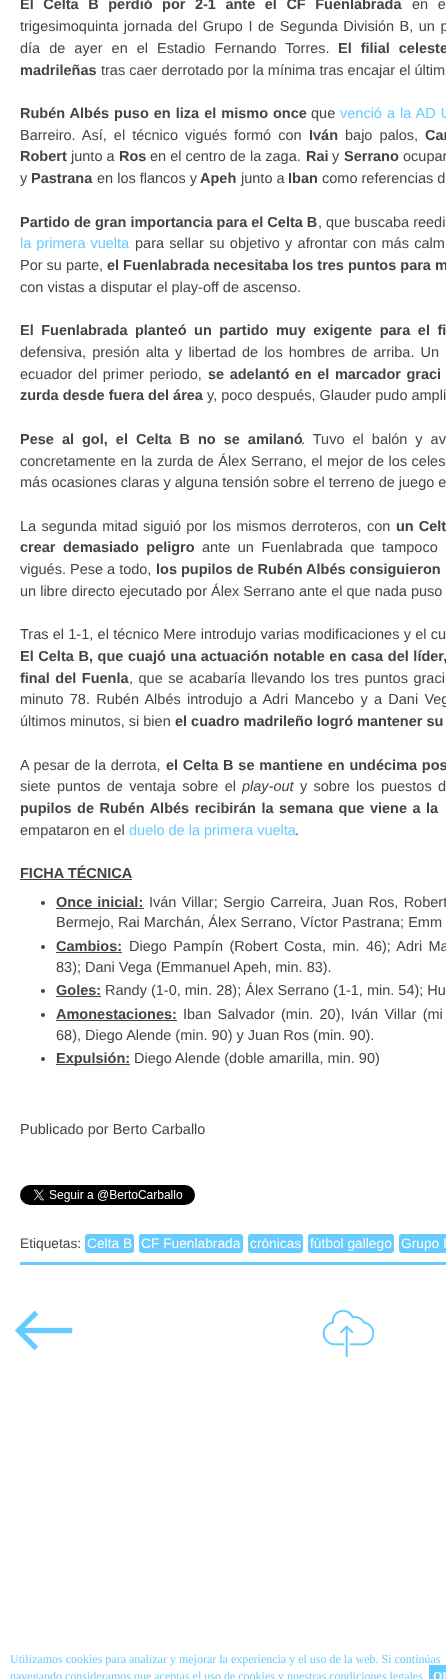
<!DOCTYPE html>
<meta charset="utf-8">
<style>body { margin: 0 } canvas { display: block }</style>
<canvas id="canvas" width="446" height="1679"></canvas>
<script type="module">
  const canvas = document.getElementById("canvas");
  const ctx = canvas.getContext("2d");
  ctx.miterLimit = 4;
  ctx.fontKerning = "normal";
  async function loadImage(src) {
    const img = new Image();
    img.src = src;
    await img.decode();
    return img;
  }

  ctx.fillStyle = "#ffffff";
  ctx.fillRect(0, 0, 446, 1679);
  ctx.wordSpacing = "5.5px";
  ctx.font = "bold 14.5px Liberation Sans";
  ctx.fillStyle = "#444444";
  ctx.fillText("El Celta B perdió por 2-1 ante el CF Fuenlabrada", 20, 9);
  ctx.font = "14.5px Liberation Sans";
  ctx.fillText("en e", 412, 9);
  ctx.wordSpacing = "1.5px";
  ctx.fillText("trigesimoquinta jornada del Grupo I de Segunda División B, un p", 20, 31);
  ctx.wordSpacing = "5px";
  ctx.fillText("día de ayer en el Estadio Fernando Torres.", 20, 53);
  ctx.font = "bold 14.5px Liberation Sans";
  ctx.fillText("El filial celeste", 338, 53);
  ctx.wordSpacing = "0px";
  ctx.fillText("madrileñas", 20, 75);
  ctx.font = "14.5px Liberation Sans";
  ctx.fillText("tras caer derrotado por la mínima tras encajar el últim", 101, 75);
  ctx.wordSpacing = "1px";
  ctx.font = "bold 14.5px Liberation Sans";
  ctx.fillText("Rubén Albés puso en liza el mismo once", 20, 118);
  ctx.wordSpacing = "0px";
  ctx.font = "14.5px Liberation Sans";
  ctx.fillText("que", 311, 118);
  ctx.wordSpacing = "1px";
  ctx.fillStyle = "#66ccff";
  ctx.fillText("venció a la AD U", 340, 118);
  ctx.wordSpacing = "3px";
  ctx.fillStyle = "#444444";
  ctx.fillText("Barreiro. Así, el técnico vigués formó con", 20, 140);
  ctx.wordSpacing = "0px";
  ctx.font = "bold 14.5px Liberation Sans";
  ctx.fillText("Iván", 309, 140);
  ctx.wordSpacing = "3px";
  ctx.font = "14.5px Liberation Sans";
  ctx.fillText("bajo palos,", 345, 140);
  ctx.wordSpacing = "0px";
  ctx.font = "bold 14.5px Liberation Sans";
  ctx.fillText("Car", 425, 140);
  ctx.fillText("Robert", 20, 161);
  ctx.font = "14.5px Liberation Sans";
  ctx.fillText("junto a", 71, 161);
  ctx.font = "bold 14.5px Liberation Sans";
  ctx.fillText("Ros", 119, 161);
  ctx.font = "14.5px Liberation Sans";
  ctx.fillText("en el centro de la zaga.", 150, 161);
  ctx.font = "bold 14.5px Liberation Sans";
  ctx.fillText("Rai", 306, 161);
  ctx.font = "14.5px Liberation Sans";
  ctx.fillText("y", 332, 161);
  ctx.font = "bold 14.5px Liberation Sans";
  ctx.fillText("Serrano", 344, 161);
  ctx.font = "14.5px Liberation Sans";
  ctx.fillText("ocupar", 403, 161);
  ctx.fillText("y", 20, 183);
  ctx.font = "bold 14.5px Liberation Sans";
  ctx.fillText("Pastrana", 31, 183);
  ctx.font = "14.5px Liberation Sans";
  ctx.fillText("en los flancos y", 97, 183);
  ctx.font = "bold 14.5px Liberation Sans";
  ctx.fillText("Apeh", 200, 183);
  ctx.font = "14.5px Liberation Sans";
  ctx.fillText("junto a", 241, 183);
  ctx.font = "bold 14.5px Liberation Sans";
  ctx.fillText("Iban", 288, 183);
  ctx.font = "14.5px Liberation Sans";
  ctx.fillText("como referencias d", 322, 183);
  ctx.font = "bold 14.5px Liberation Sans";
  ctx.fillText("Partido de gran importancia para el Celta B", 20, 227);
  ctx.font = "14.5px Liberation Sans";
  ctx.fillText(", que buscaba reedi", 318, 227);
  ctx.wordSpacing = "1px";
  ctx.fillStyle = "#66ccff";
  ctx.fillText("la primera vuelta", 20, 248);
  ctx.wordSpacing = "1.25px";
  ctx.fillStyle = "#444444";
  ctx.fillText("para sellar su objetivo y afrontar con más calm", 135, 248);
  ctx.wordSpacing = "0px";
  ctx.fillText("Por su parte,", 20, 270);
  ctx.font = "bold 14.5px Liberation Sans";
  ctx.fillText("el Fuenlabrada necesitaba los tres puntos para m", 107, 270);
  ctx.font = "14.5px Liberation Sans";
  ctx.fillText("con vistas a disputar el play-off de ascenso.", 20, 292);
  ctx.wordSpacing = "3.5px";
  ctx.font = "bold 14.5px Liberation Sans";
  ctx.fillText("El Fuenlabrada planteó un partido muy exigente para el fi", 20, 335);
  ctx.wordSpacing = "2px";
  ctx.font = "14.5px Liberation Sans";
  ctx.fillText("defensiva, presión alta y libertad de los hombres de arriba. Un", 20, 357);
  ctx.wordSpacing = "1.5px";
  ctx.fillText("ecuador del primer periodo,", 20, 379);
  ctx.font = "bold 14.5px Liberation Sans";
  ctx.fillText("se adelantó en el marcador graci", 208, 379);
  ctx.wordSpacing = "0px";
  ctx.fillText("zurda desde fuera del área", 20, 400);
  ctx.font = "14.5px Liberation Sans";
  ctx.fillText("y, poco después, Glauder pudo ampli", 207, 400);
  ctx.wordSpacing = "4px";
  ctx.font = "bold 14.5px Liberation Sans";
  ctx.fillText("Pese al gol, el Celta B no se amilanó", 20, 444);
  ctx.font = "14.5px Liberation Sans";
  ctx.fillText(". Tuvo el balón y av", 301, 444);
  ctx.wordSpacing = "0.5px";
  ctx.fillText("concretamente en la zurda de Álex Serrano, el mejor de los celes", 20, 466);
  ctx.wordSpacing = "0px";
  ctx.fillText("más ocasiones claras y alguna tensión sobre el terreno de juego e", 20, 487);
  ctx.wordSpacing = "1.25px";
  ctx.fillText("La segunda mitad siguió por los mismos derroteros, con", 20, 531);
  ctx.wordSpacing = "1px";
  ctx.font = "bold 14.5px Liberation Sans";
  ctx.fillText("un Celt", 396, 531);
  ctx.wordSpacing = "3.5px";
  ctx.fillText("crear demasiado peligro", 20, 552);
  ctx.font = "14.5px Liberation Sans";
  ctx.fillText("ante un Fuenlabrada que tampoco", 202, 552);
  ctx.wordSpacing = "0px";
  ctx.fillText("vigués. Pese a todo,", 20, 574);
  ctx.font = "bold 14.5px Liberation Sans";
  ctx.fillText("los pupilos de Rubén Albés consiguieron", 156, 574);
  ctx.font = "14.5px Liberation Sans";
  ctx.fillText("un libre directo ejecutado por Álex Serrano ante el que nada puso", 20, 596);
  ctx.wordSpacing = "0.25px";
  ctx.fillText("Tras el 1-1, el técnico Mere introdujo varias modificaciones y el cu", 20, 639);
  ctx.wordSpacing = "0.6px";
  ctx.font = "bold 14.5px Liberation Sans";
  ctx.fillText("El Celta B, que cuajó una actuación notable en casa del líder,", 20, 661);
  ctx.wordSpacing = "1.5px";
  ctx.fillText("final del Fuenla", 20, 683);
  ctx.font = "14.5px Liberation Sans";
  ctx.fillText(", que se acabaría llevando los tres puntos graci", 129, 683);
  ctx.wordSpacing = "2.25px";
  ctx.fillText("minuto 78. Rubén Albés introdujo a Adri Mancebo y a Dani Veg", 20, 704);
  ctx.wordSpacing = "0px";
  ctx.fillText("últimos minutos, si bien", 20, 726);
  ctx.font = "bold 14.5px Liberation Sans";
  ctx.fillText("el cuadro madrileño logró mantener su", 175, 726);
  ctx.wordSpacing = "0.5px";
  ctx.font = "14.5px Liberation Sans";
  ctx.fillText("A pesar de la derrota,", 20, 770);
  ctx.wordSpacing = "0.75px";
  ctx.font = "bold 14.5px Liberation Sans";
  ctx.fillText("el Celta B se mantiene en undécima pos", 166, 770);
  ctx.wordSpacing = "2.25px";
  ctx.font = "14.5px Liberation Sans";
  ctx.fillText("siete puntos de ventaja sobre el", 20, 791);
  ctx.wordSpacing = "0px";
  ctx.font = "italic 14.5px Liberation Sans";
  ctx.fillText("play-out", 242, 791);
  ctx.wordSpacing = "2.25px";
  ctx.font = "14.5px Liberation Sans";
  ctx.fillText("y sobre los puestos d", 300, 791);
  ctx.wordSpacing = "1.5px";
  ctx.font = "bold 14.5px Liberation Sans";
  ctx.fillText("pupilos de Rubén Albés recibirán la semana que viene a la", 20, 813);
  ctx.wordSpacing = "0px";
  ctx.font = "14.5px Liberation Sans";
  ctx.fillText("empataron en el", 20, 835);
  ctx.fillStyle = "#66ccff";
  ctx.fillText("duelo de la primera vuelta", 129, 835);
  ctx.fillStyle = "#444444";
  ctx.fillText(".", 295, 835);
  ctx.font = "bold 14.5px Liberation Sans";
  ctx.fillText("FICHA TÉCNICA", 20, 878);
  ctx.fillRect(20, 879, 112, 1);
  ctx.beginPath();
  ctx.arc(43, 903, 2, 0, Math.PI * 2);
  ctx.fill();
  ctx.wordSpacing = "1px";
  ctx.fillText("Once inicial:", 56, 907);
  ctx.fillRect(56, 908, 88, 1);
  ctx.wordSpacing = "1.25px";
  ctx.font = "14.5px Liberation Sans";
  ctx.fillText("Iván Villar; Sergio Carreira, Juan Ros, Robert", 149, 907);
  ctx.wordSpacing = "0px";
  ctx.fillText("Bermejo, Rai Marchán, Álex Serrano, Víctor Pastrana; Emm", 56, 927);
  ctx.beginPath();
  ctx.arc(43, 947, 2, 0, Math.PI * 2);
  ctx.fill();
  ctx.font = "bold 14.5px Liberation Sans";
  ctx.fillText("Cambios:", 56, 951);
  ctx.fillRect(56, 952, 66, 1);
  ctx.wordSpacing = "2.25px";
  ctx.font = "14.5px Liberation Sans";
  ctx.fillText("Diego Pampín (Robert Costa, min. 46); Adri Ma", 129, 951);
  ctx.wordSpacing = "0px";
  ctx.fillText("83); Dani Vega (Emmanuel Apeh, min. 83).", 56, 972);
  ctx.beginPath();
  ctx.arc(43, 991, 2, 0, Math.PI * 2);
  ctx.fill();
  ctx.font = "bold 14.5px Liberation Sans";
  ctx.fillText("Goles:", 56, 995);
  ctx.fillRect(56, 996, 45, 1);
  ctx.font = "14.5px Liberation Sans";
  ctx.fillText("Randy (1-0, min. 28); Álex Serrano (1-1, min. 54); Hu", 105, 995);
  ctx.beginPath();
  ctx.arc(43, 1015, 2, 0, Math.PI * 2);
  ctx.fill();
  ctx.font = "bold 14.5px Liberation Sans";
  ctx.fillText("Amonestaciones:", 56, 1019);
  ctx.fillRect(56, 1020, 121, 1);
  ctx.wordSpacing = "2.25px";
  ctx.font = "14.5px Liberation Sans";
  ctx.fillText("Iban Salvador (min. 20), Iván Villar (mi", 183, 1019);
  ctx.wordSpacing = "0px";
  ctx.fillText("68), Diego Alende (min. 90) y Juan Ros (min. 90).", 56, 1040);
  ctx.beginPath();
  ctx.arc(43, 1059, 2, 0, Math.PI * 2);
  ctx.fill();
  ctx.fillRect(56, 1064, 74, 1);
  ctx.font = "bold 14.5px Liberation Sans";
  ctx.fillText("Expulsión:", 56, 1063);
  ctx.font = "14.5px Liberation Sans";
  ctx.fillText("Diego Alende (doble amarilla, min. 90)", 134, 1063);
  ctx.fillText("Publicado por Berto Carballo", 20, 1134);
  ctx.drawImage(await loadImage("img1.png"), 20, 1185, 175, 20);
  ctx.font = "13.75px Liberation Sans";
  ctx.fillText("Etiquetas:", 20, 1248);
  ctx.fillStyle = "#66ccff";
  ctx.beginPath();
  ctx.roundRect(85, 1234, 49, 19, 3);
  ctx.fill();
  ctx.fillStyle = "#ffffff";
  ctx.fillText("Celta B", 87, 1248);
  ctx.fillStyle = "#66ccff";
  ctx.beginPath();
  ctx.roundRect(139, 1234, 104, 19, 3);
  ctx.fill();
  ctx.fillStyle = "#ffffff";
  ctx.fillText("CF Fuenlabrada", 141, 1248);
  ctx.fillStyle = "#66ccff";
  ctx.beginPath();
  ctx.roundRect(248, 1234, 55, 19, 3);
  ctx.fill();
  ctx.fillStyle = "#ffffff";
  ctx.fillText("crónicas", 250, 1248);
  ctx.fillStyle = "#66ccff";
  ctx.beginPath();
  ctx.roundRect(308, 1234, 86, 19, 3);
  ctx.fill();
  ctx.fillStyle = "#ffffff";
  ctx.fillText("fútbol gallego", 310, 1248);
  ctx.fillStyle = "#66ccff";
  ctx.beginPath();
  ctx.roundRect(399, 1234, 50, 19, 3);
  ctx.fill();
  ctx.fillStyle = "#ffffff";
  ctx.fillText("Grupo I", 401, 1248);
  ctx.fillStyle = "#66ccff";
  ctx.fillRect(20, 1262, 426, 3);
  ctx.drawImage(await loadImage("img2.png"), 15, 1310, 58, 40);
  ctx.drawImage(await loadImage("img3.png"), 322, 1310, 52, 47);
  ctx.font = "12px Liberation Serif";
  ctx.fillText("Utilizamos cookies para analizar y mejorar la experiencia y el uso de la web. Si continúas", 10, 1663);
  ctx.fillText("navegando consideramos que aceptas el uso de cookies y nuestras condiciones legales.", 10, 1680);
  ctx.fillRect(429, 1665, 17, 14);
  ctx.font = "bold 12px Liberation Serif";
  ctx.fillStyle = "#ffffff";
  ctx.fillText("OK", 433, 1680);
</script>
